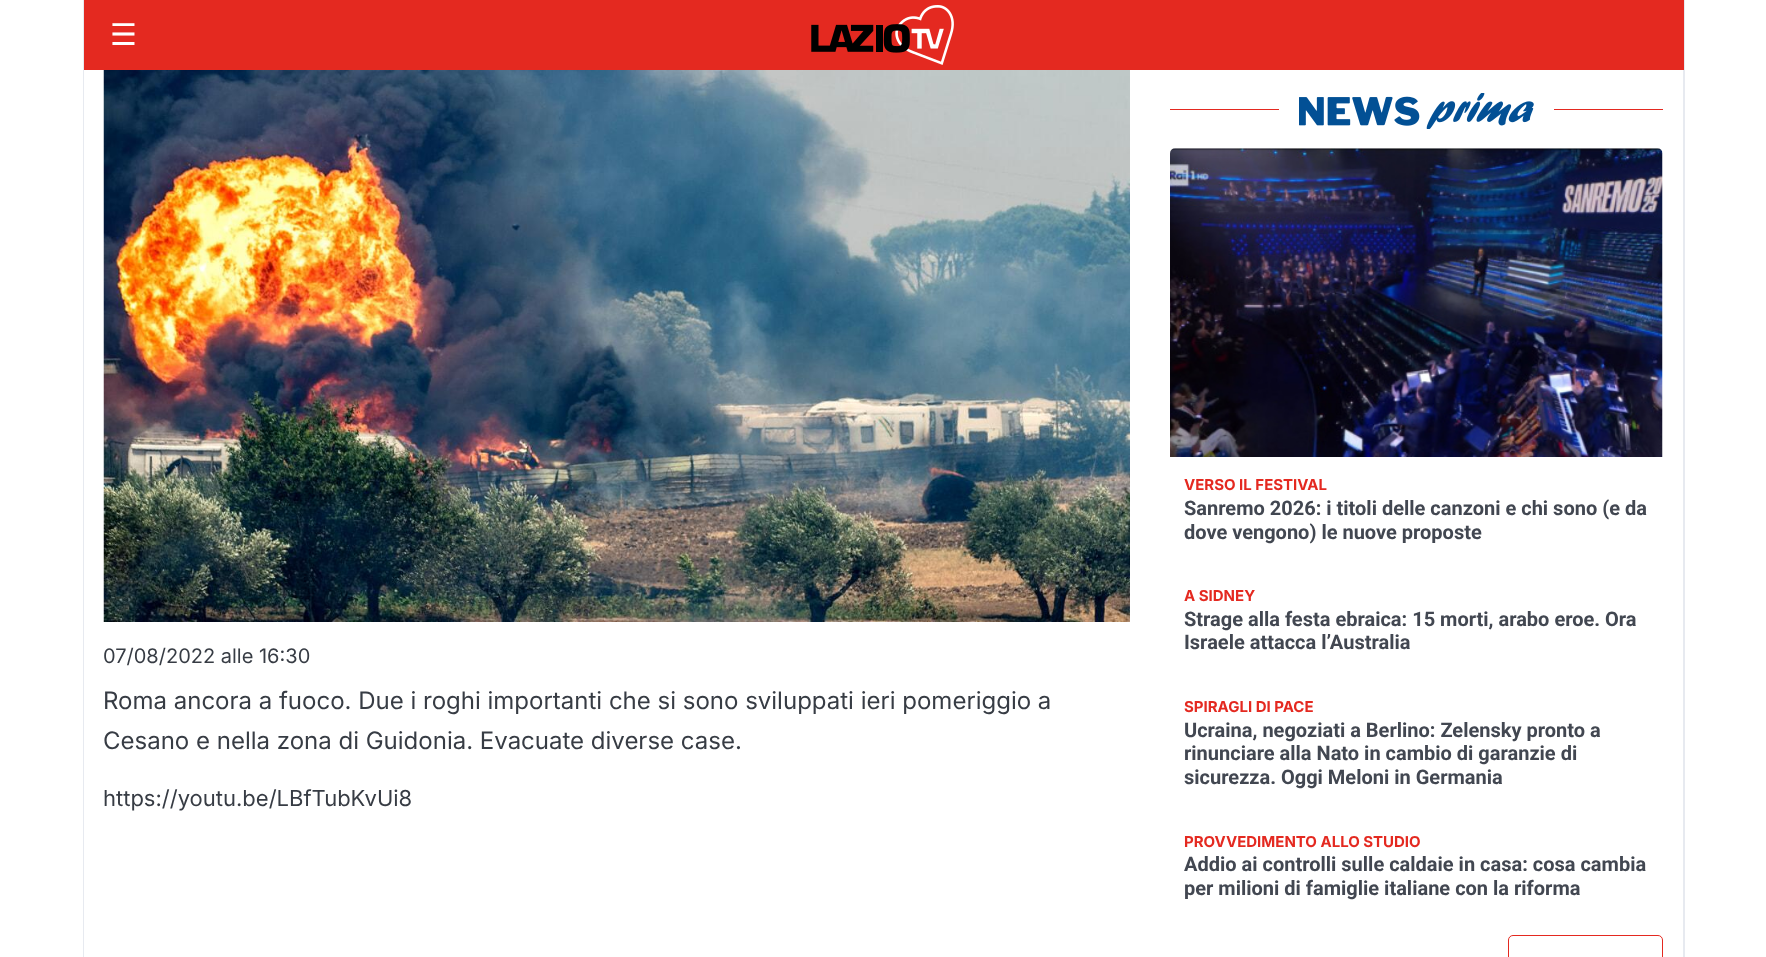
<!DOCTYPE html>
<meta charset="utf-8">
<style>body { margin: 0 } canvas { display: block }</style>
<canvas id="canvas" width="1766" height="957"></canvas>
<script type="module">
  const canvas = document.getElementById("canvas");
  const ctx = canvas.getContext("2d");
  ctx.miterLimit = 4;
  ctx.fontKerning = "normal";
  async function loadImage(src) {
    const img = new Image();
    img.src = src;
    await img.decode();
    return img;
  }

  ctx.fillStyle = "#ffffff";
  ctx.fillRect(0, 0, 1766, 957);
  ctx.fillStyle = "#e7eaf0";
  ctx.beginPath();
  ctx.moveTo(1151, 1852);
  ctx.lineTo(1151, 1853);
  ctx.lineTo(1684, 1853);
  ctx.lineTo(1684, -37);
  ctx.lineTo(1682, -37);
  ctx.lineTo(1682, 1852);
  ctx.closePath();
  ctx.fill();
  ctx.fillStyle = "#e42920";
  ctx.fillRect(84, 0, 1600, 70);
  ctx.font = "30px DejaVu Sans";
  ctx.fillStyle = "#ffffff";
  ctx.fillText("☰", 110, 45);
  ctx.drawImage(await loadImage("img1.png"), 811, 5, 143, 60);
  ctx.fillStyle = "#e7eaf0";
  ctx.beginPath();
  ctx.moveTo(85, 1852);
  ctx.lineTo(85, 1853);
  ctx.lineTo(1685, 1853);
  ctx.lineTo(1685, -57);
  ctx.lineTo(1684, -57);
  ctx.lineTo(1684, 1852);
  ctx.closePath();
  ctx.fill();
  ctx.beginPath();
  ctx.moveTo(83, -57);
  ctx.lineTo(83, 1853);
  ctx.lineTo(1683, 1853);
  ctx.lineTo(1683, 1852);
  ctx.lineTo(84, 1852);
  ctx.lineTo(84, -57);
  ctx.closePath();
  ctx.fill();
  ctx.drawImage(await loadImage("img2.png"), 103, 70, 1027, 552);
  ctx.font = "20px Inter";
  ctx.fillStyle = "#373c44";
  ctx.fillText("07/08/2022 alle 16:30", 103, 663);
  ctx.font = "24px Inter";
  ctx.fillText("Roma ancora a fuoco. Due i roghi importanti che si sono sviluppati ieri pomeriggio a", 103, 709);
  ctx.fillText("Cesano e nella zona di Guidonia. Evacuate diverse case.", 103, 749);
  ctx.font = "22px Inter";
  ctx.fillText("https://youtu.be/LBfTubKvUi8", 103, 806);
  ctx.fillStyle = "#ffffff";
  ctx.fillRect(1682, 70, 1, 887);
  ctx.fillStyle = "#e42920";
  ctx.fillRect(1170, 109, 493, 1);
  ctx.fillStyle = "#ffffff";
  ctx.fillRect(1279, 109, 275, 1);
  ctx.drawImage(await loadImage("img3.png"), 1299, 93, 235, 36);
  ctx.drawImage(await loadImage("img4.png"), 1170, 148, 493, 309);
  ctx.font = "bold 15px Inter";
  ctx.fillStyle = "#e42920";
  ctx.fillText("VERSO IL FESTIVAL", 1184, 490);
  ctx.font = "bold 20px Roboto";
  ctx.fillStyle = "#424751";
  ctx.fillText("Sanremo 2026: i titoli delle canzoni e chi sono (e da", 1184, 515);
  ctx.fillText("dove vengono) le nuove proposte", 1184, 539);
  ctx.font = "bold 15px Inter";
  ctx.fillStyle = "#e42920";
  ctx.fillText("A SIDNEY", 1184, 601);
  ctx.font = "bold 20px Roboto";
  ctx.fillStyle = "#424751";
  ctx.fillText("Strage alla festa ebraica: 15 morti, arabo eroe. Ora", 1184, 626);
  ctx.fillText("Israele attacca l’Australia", 1184, 649);
  ctx.font = "bold 15px Inter";
  ctx.fillStyle = "#e42920";
  ctx.fillText("SPIRAGLI DI PACE", 1184, 712);
  ctx.font = "bold 20px Roboto";
  ctx.fillStyle = "#424751";
  ctx.fillText("Ucraina, negoziati a Berlino: Zelensky pronto a", 1184, 737);
  ctx.fillText("rinunciare alla Nato in cambio di garanzie di", 1184, 760);
  ctx.fillText("sicurezza. Oggi Meloni in Germania", 1184, 784);
  ctx.font = "bold 15px Inter";
  ctx.fillStyle = "#e42920";
  ctx.fillText("PROVVEDIMENTO ALLO STUDIO", 1184, 847);
  ctx.font = "bold 20px Roboto";
  ctx.fillStyle = "#424751";
  ctx.fillText("Addio ai controlli sulle caldaie in casa: cosa cambia", 1184, 871);
  ctx.fillText("per milioni di famiglie italiane con la riforma", 1184, 895);
  ctx.beginPath();
  ctx.roundRect(1508.5, 935.5, 154, 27, 4.5);
  ctx.strokeStyle = "#e42920";
  ctx.stroke();
</script>
